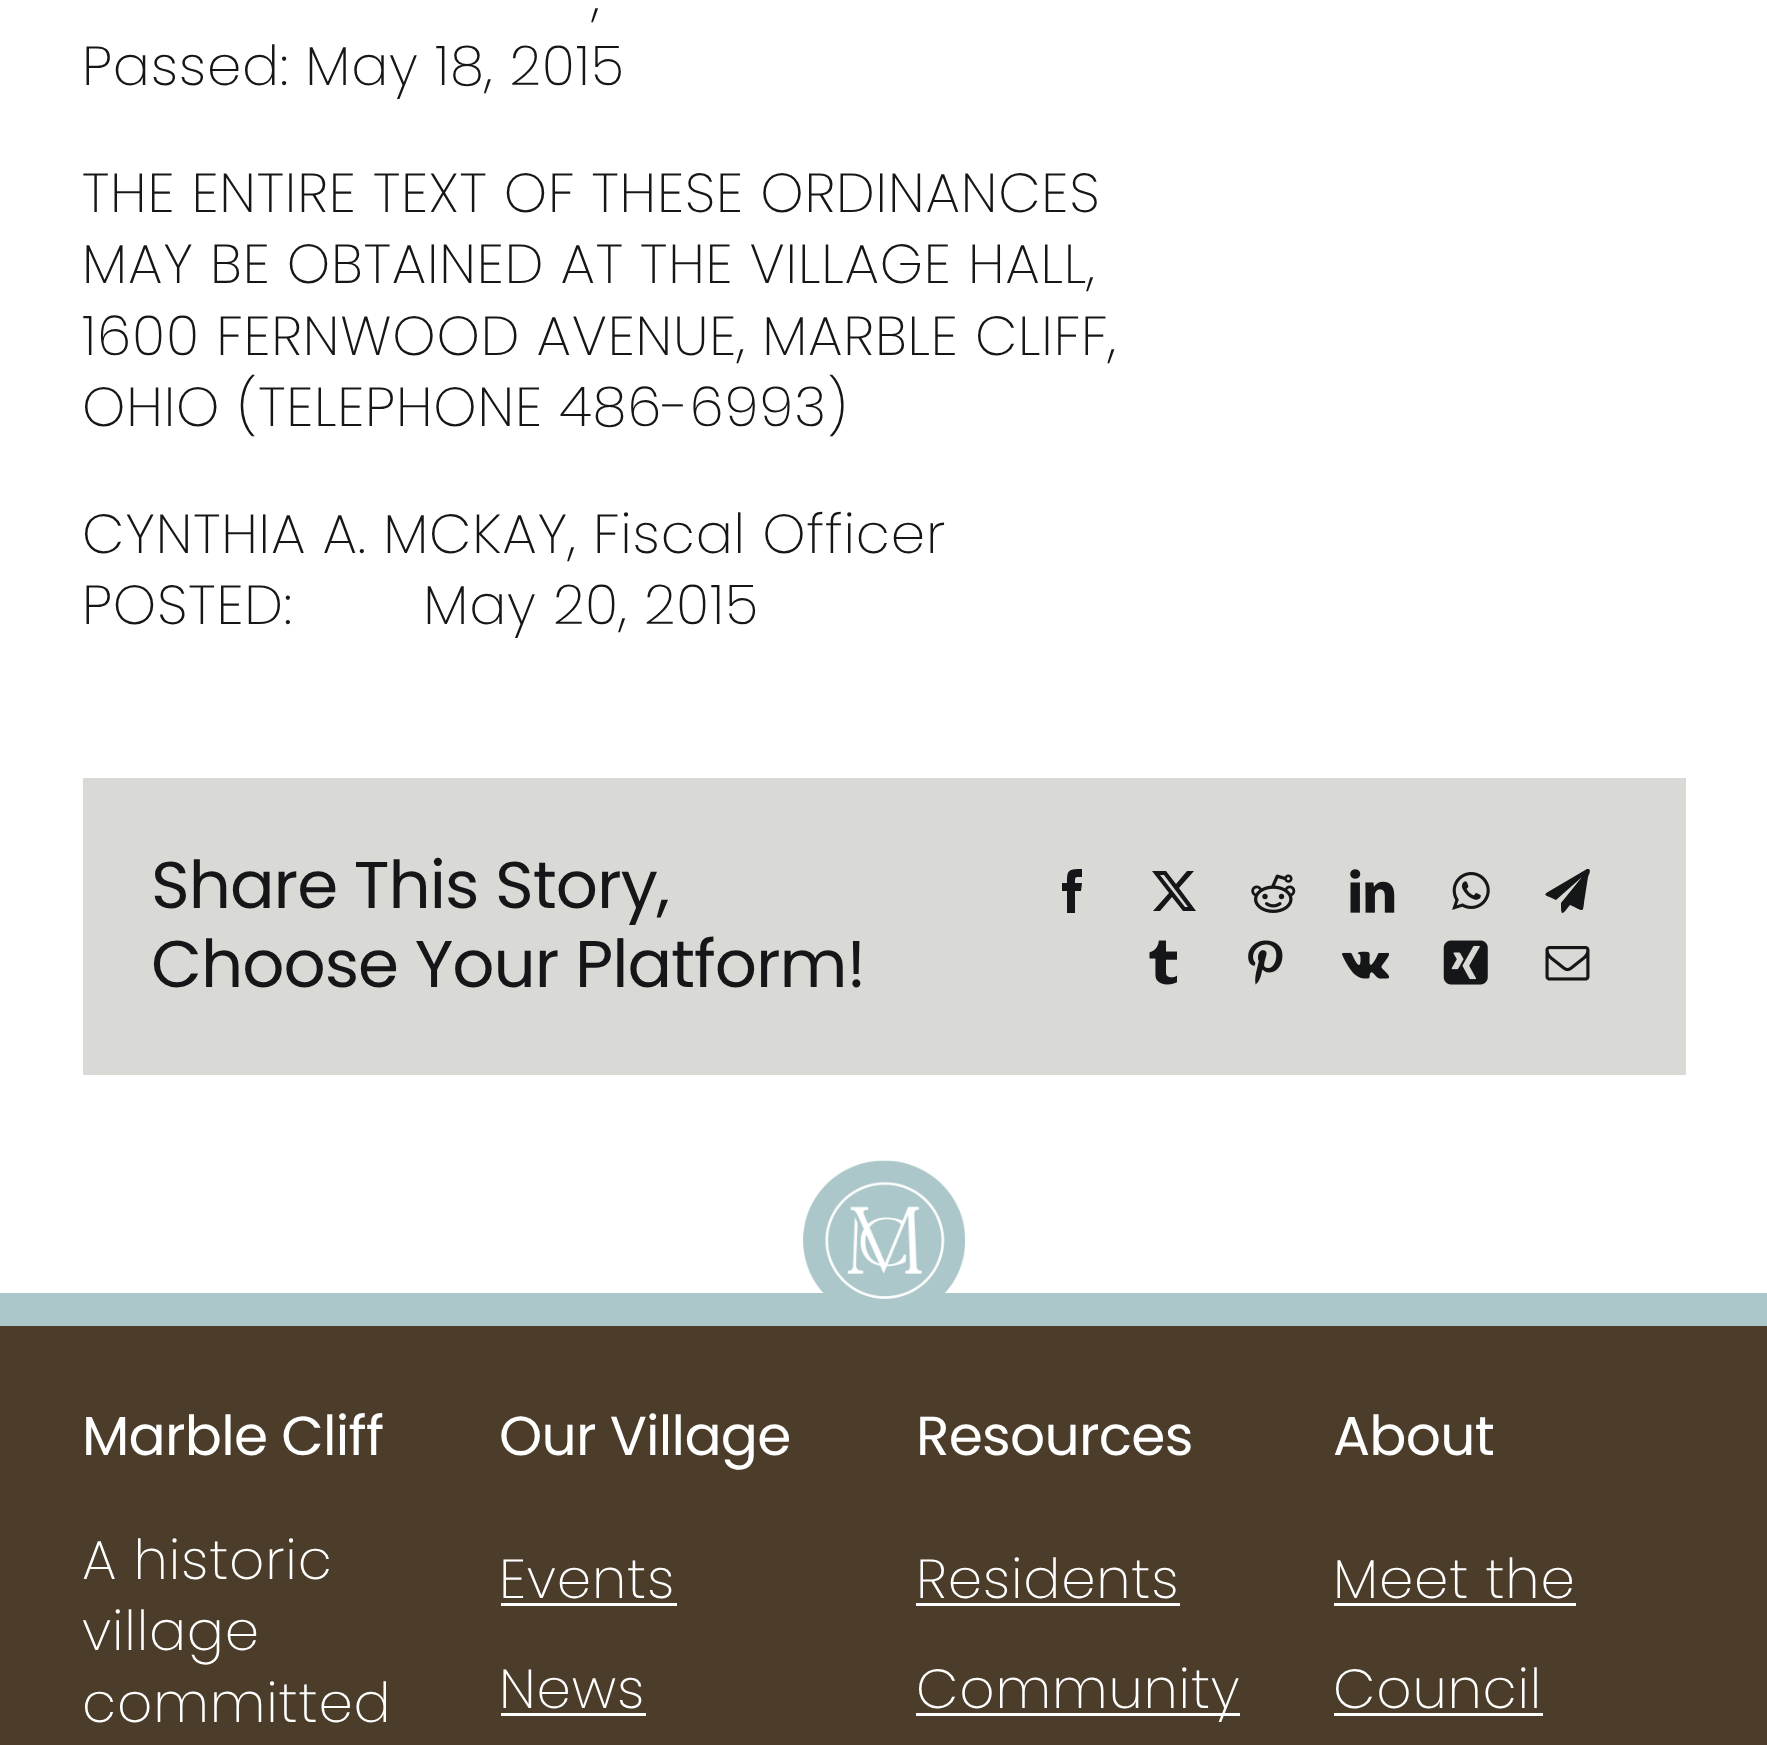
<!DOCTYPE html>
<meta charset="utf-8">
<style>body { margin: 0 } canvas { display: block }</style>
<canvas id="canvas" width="1767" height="1745"></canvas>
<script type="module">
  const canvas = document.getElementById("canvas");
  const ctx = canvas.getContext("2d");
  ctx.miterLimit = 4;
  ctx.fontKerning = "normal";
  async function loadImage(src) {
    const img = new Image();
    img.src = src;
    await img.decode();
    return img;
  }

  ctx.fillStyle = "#ffffff";
  ctx.fillRect(0, 0, 1767, 1745);
  ctx.letterSpacing = "0.8px";
  ctx.font = "200 55px Poppins";
  ctx.fillStyle = "#141617";
  ctx.fillText(",", 592, 14);
  ctx.fillText("Passed: May 18, 2015", 82, 85);
  ctx.fillText("THE ENTIRE TEXT OF THESE ORDINANCES", 82, 212);
  ctx.fillText("MAY BE OBTAINED AT THE VILLAGE HALL,", 82, 283);
  ctx.fillText("1600 FERNWOOD AVENUE, MARBLE CLIFF,", 82, 355);
  ctx.fillText("OHIO (TELEPHONE 486-6993)", 82, 426);
  ctx.fillText("CYNTHIA A. MCKAY, Fiscal Officer", 82, 553);
  ctx.fillText("POSTED:        May 20, 2015", 82, 624);
  ctx.fillStyle = "#d9d9d6";
  ctx.fillRect(83, 778, 1603, 297);
  ctx.letterSpacing = "-1px";
  ctx.font = "66px Poppins";
  ctx.fillStyle = "#141617";
  ctx.fillText("Share This Story,", 151, 908);
  ctx.fillText("Choose Your Platform!", 151, 987);
  ctx.beginPath();
  ctx.moveTo(1075, 913);
  ctx.lineTo(1067, 913);
  ctx.lineTo(1067, 891);
  ctx.lineTo(1062, 891);
  ctx.lineTo(1062, 883);
  ctx.lineTo(1067, 883);
  ctx.bezierCurveTo(1067, 870, 1068, 869, 1082, 869);
  ctx.lineTo(1082, 877);
  ctx.bezierCurveTo(1075, 877, 1075, 876, 1075, 883);
  ctx.lineTo(1082, 883);
  ctx.lineTo(1081, 891);
  ctx.lineTo(1075, 891);
  ctx.closePath();
  ctx.fill();
  ctx.beginPath();
  ctx.moveTo(1187, 871);
  ctx.lineTo(1194, 871);
  ctx.lineTo(1179, 888);
  ctx.lineTo(1196, 911);
  ctx.lineTo(1183, 911);
  ctx.lineTo(1172, 897);
  ctx.lineTo(1160, 911);
  ctx.lineTo(1153, 911);
  ctx.lineTo(1169, 893);
  ctx.lineTo(1152, 871);
  ctx.lineTo(1166, 871);
  ctx.lineTo(1176, 884);
  ctx.closePath();
  ctx.moveTo(1185, 907);
  ctx.lineTo(1188, 907);
  ctx.lineTo(1164, 875);
  ctx.lineTo(1160, 875);
  ctx.closePath();
  ctx.fill();
  ctx.drawImage(await loadImage("img1.png"), 1251, 874, 45, 39);
  ctx.drawImage(await loadImage("img2.png"), 1350, 869, 45, 44);
  ctx.drawImage(await loadImage("img3.png"), 1452, 872, 38, 38);
  ctx.beginPath();
  ctx.moveTo(1589, 869);
  ctx.bezierCurveTo(1591, 871, 1589, 874, 1588, 877);
  ctx.lineTo(1585, 896);
  ctx.bezierCurveTo(1582, 914, 1586, 912, 1570, 905);
  ctx.bezierCurveTo(1562, 915, 1561, 917, 1561, 903);
  ctx.lineTo(1582, 877);
  ctx.lineTo(1556, 900);
  ctx.bezierCurveTo(1544, 894, 1541, 896, 1553, 889);
  ctx.lineTo(1587, 869);
  ctx.closePath();
  ctx.fill();
  ctx.drawImage(await loadImage("img4.png"), 1149, 940, 28, 45);
  ctx.drawImage(await loadImage("img5.png"), 1248, 940, 35, 45);
  ctx.drawImage(await loadImage("img6.png"), 1342, 951, 48, 28);
  ctx.drawImage(await loadImage("img7.png"), 1443, 940, 45, 45);
  ctx.drawImage(await loadImage("img8.png"), 1545, 946, 45, 35);
  ctx.fillStyle = "#4b3d2a";
  ctx.fillRect(0, 1326, 1767, 419);
  ctx.fillStyle = "#abc7c9";
  ctx.fillRect(0, 1293, 1767, 33);
  ctx.drawImage(await loadImage("img9.png"), 803, 1160, 163, 139);
  ctx.letterSpacing = "-0.75px";
  ctx.font = "55px Poppins";
  ctx.fillStyle = "#ffffff";
  ctx.fillText("Marble Cliff", 82, 1455);
  ctx.letterSpacing = "0.8px";
  ctx.font = "200 55px Poppins";
  ctx.fillText("A historic", 82, 1579);
  ctx.fillText("village", 82, 1650);
  ctx.fillText("committed", 82, 1722);
  ctx.letterSpacing = "-0.75px";
  ctx.font = "55px Poppins";
  ctx.fillText("Our Village", 499, 1455);
  ctx.letterSpacing = "0.8px";
  ctx.font = "200 55px Poppins";
  ctx.fillText("Events", 499, 1598);
  ctx.fillRect(501, 1603, 176, 3);
  ctx.fillText("News", 499, 1708);
  ctx.fillRect(501, 1713, 145, 3);
  ctx.letterSpacing = "-0.75px";
  ctx.font = "55px Poppins";
  ctx.fillText("Resources", 916, 1455);
  ctx.letterSpacing = "0.8px";
  ctx.font = "200 55px Poppins";
  ctx.fillText("Residents", 916, 1598);
  ctx.fillRect(916, 1603, 264, 3);
  ctx.fillRect(916, 1713, 324, 3);
  ctx.fillText("Community", 916, 1708);
  ctx.letterSpacing = "-0.75px";
  ctx.font = "55px Poppins";
  ctx.fillText("About", 1333, 1455);
  ctx.letterSpacing = "0.8px";
  ctx.font = "200 55px Poppins";
  ctx.fillText("Meet the", 1333, 1598);
  ctx.fillRect(1334, 1603, 242, 3);
  ctx.fillText("Council", 1333, 1708);
  ctx.fillRect(1334, 1713, 209, 3);
</script>
